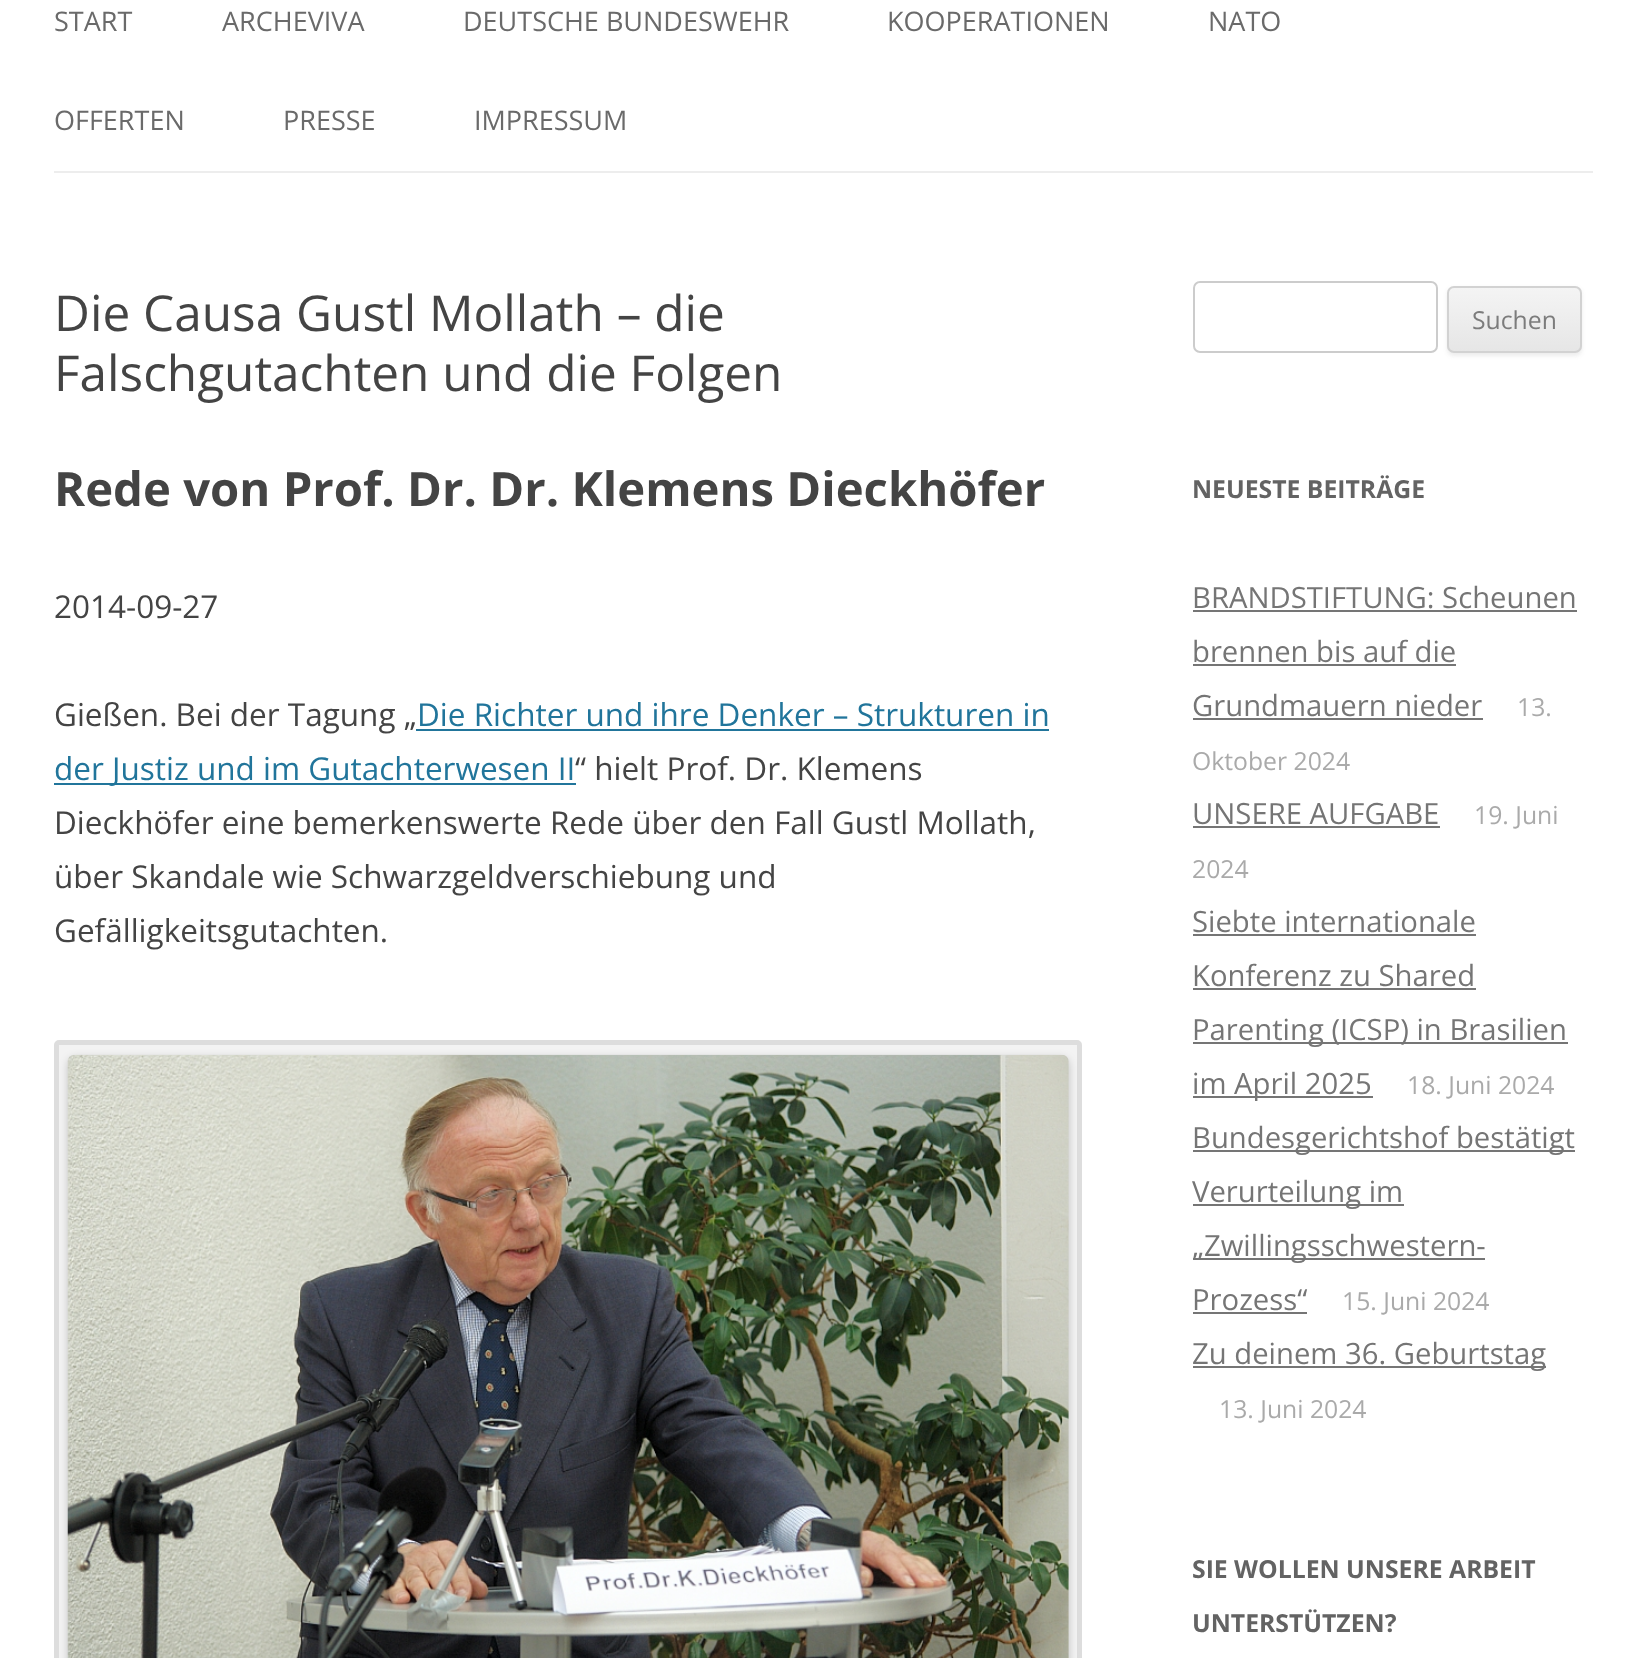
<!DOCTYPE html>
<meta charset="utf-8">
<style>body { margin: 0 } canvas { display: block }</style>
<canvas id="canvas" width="1646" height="1658"></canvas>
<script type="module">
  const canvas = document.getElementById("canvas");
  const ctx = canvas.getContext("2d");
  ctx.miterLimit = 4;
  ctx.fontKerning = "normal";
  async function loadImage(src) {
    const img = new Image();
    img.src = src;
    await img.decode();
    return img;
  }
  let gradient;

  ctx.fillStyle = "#ffffff";
  ctx.fillRect(0, 0, 1646, 1658);
  ctx.fillStyle = "#ededed";
  ctx.fillRect(54, 171, 1539, 2);
  ctx.font = "27px Open Sans";
  ctx.fillStyle = "#6a6a6a";
  ctx.fillText("START", 54, 31);
  ctx.fillText("ARCHEVIVA", 222, 31);
  ctx.fillText("DEUTSCHE BUNDESWEHR", 463, 31);
  ctx.fillText("KOOPERATIONEN", 887, 31);
  ctx.fillText("NATO", 1208, 31);
  ctx.fillText("OFFERTEN", 54, 130);
  ctx.fillText("PRESSE", 283, 130);
  ctx.fillText("IMPRESSUM", 474, 130);
  ctx.font = "49.5px Open Sans";
  ctx.fillStyle = "#444444";
  ctx.fillText("Die Causa Gustl Mollath – die", 54, 331);
  ctx.fillText("Falschgutachten und die Folgen", 54, 391);
  ctx.font = "bold 47.25px Open Sans";
  ctx.fillText("Rede von Prof. Dr. Dr. Klemens Dieckhöfer", 54, 506);
  ctx.font = "31.5px Open Sans";
  ctx.fillText("2014-09-27", 54, 618);
  ctx.fillText("Gießen. Bei der Tagung „", 54, 726);
  ctx.fillStyle = "#21759b";
  ctx.fillText("Die Richter und ihre Denker – Strukturen in", 417, 726);
  ctx.fillRect(416, 729, 633, 2);
  ctx.fillRect(54, 783, 522, 2);
  ctx.fillText("der Justiz und im Gutachterwesen II", 54, 780);
  ctx.fillStyle = "#444444";
  ctx.fillText("“ hielt Prof. Dr. Klemens", 575, 780);
  ctx.fillText("Dieckhöfer eine bemerkenswerte Rede über den Fall Gustl Mollath,", 54, 834);
  ctx.fillText("über Skandale wie Schwarzgeldverschiebung und", 54, 888);
  ctx.fillText("Gefälligkeitsgutachten.", 54, 942);
  ctx.fillStyle = "#f3f3f3";
  ctx.beginPath();
  ctx.roundRect(56.5, 1042.5, 1023, 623, 2.5);
  ctx.fill();
  ctx.strokeStyle = "#dddddd";
  ctx.lineWidth = 5;
  ctx.stroke();
  ctx.fillStyle = "rgba(0, 0, 0, 0.2)";
  ctx.filter = "blur(4.5px)";
  ctx.beginPath();
  ctx.roundRect(68, 1058, 1001, 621, 7);
  ctx.fill();
  ctx.filter = "none";
  ctx.drawImage(await loadImage("img1.png"), 67, 1054, 1002, 604);
  ctx.beginPath();
  ctx.roundRect(1194, 282, 243, 70, 6);
  ctx.strokeStyle = "#cccccc";
  ctx.lineWidth = 2;
  ctx.stroke();
  ctx.fillStyle = "rgba(64, 64, 64, 0.1)";
  ctx.filter = "blur(2px)";
  ctx.beginPath();
  ctx.roundRect(1447, 288, 135, 68, 7);
  ctx.fill();
  ctx.filter = "none";
  ctx.save();
  ctx.beginPath();
  ctx.roundRect(1447, 286, 135, 67, 7);
  ctx.clip();
  gradient = ctx.createLinearGradient(1514, 288, 1514, 351);
  gradient.addColorStop(0, "#f4f4f4");
  gradient.addColorStop(1, "#e6e6e6");
  ctx.fillStyle = gradient;
  ctx.fillRect(1447, 288, 135, 63);
  ctx.restore();
  ctx.beginPath();
  ctx.roundRect(1448, 287, 133, 65, 6);
  ctx.strokeStyle = "#d2d2d2";
  ctx.stroke();
  ctx.font = "24.75px Open Sans";
  ctx.fillStyle = "#7c7c7c";
  ctx.fillText("Suchen", 1472, 329);
  ctx.font = "bold 24.75px Open Sans";
  ctx.fillStyle = "#636363";
  ctx.fillText("NEUESTE BEITRÄGE", 1192, 498);
  ctx.font = "29.25px Open Sans";
  ctx.fillStyle = "#757575";
  ctx.fillText("BRANDSTIFTUNG: Scheunen", 1192, 608);
  ctx.fillRect(1193, 610, 384, 2);
  ctx.fillText("brennen bis auf die", 1192, 662);
  ctx.fillRect(1193, 664, 263, 2);
  ctx.fillText("Grundmauern nieder", 1192, 716);
  ctx.fillRect(1193, 718, 290, 2);
  ctx.font = "24.75px Open Sans";
  ctx.fillStyle = "#aaaaaa";
  ctx.fillText("13.", 1517, 716);
  ctx.fillText("Oktober 2024", 1192, 770);
  ctx.font = "29.25px Open Sans";
  ctx.fillStyle = "#757575";
  ctx.fillText("UNSERE AUFGABE", 1192, 824);
  ctx.fillRect(1193, 826, 247, 2);
  ctx.font = "24.75px Open Sans";
  ctx.fillStyle = "#aaaaaa";
  ctx.fillText("19. Juni", 1474, 824);
  ctx.fillText("2024", 1192, 878);
  ctx.font = "29.25px Open Sans";
  ctx.fillStyle = "#757575";
  ctx.fillText("Siebte internationale", 1192, 932);
  ctx.fillRect(1193, 934, 283, 2);
  ctx.fillText("Konferenz zu Shared", 1192, 986);
  ctx.fillRect(1193, 988, 283, 2);
  ctx.fillRect(1193, 1042, 375, 2);
  ctx.fillText("Parenting (ICSP) in Brasilien", 1192, 1040);
  ctx.fillRect(1193, 1096, 180, 2);
  ctx.fillText("im April 2025", 1192, 1094);
  ctx.font = "24.75px Open Sans";
  ctx.fillStyle = "#aaaaaa";
  ctx.fillText("18. Juni 2024", 1407, 1094);
  ctx.fillStyle = "#757575";
  ctx.fillRect(1193, 1150, 382, 2);
  ctx.font = "29.25px Open Sans";
  ctx.fillText("Bundesgerichtshof bestätigt", 1192, 1148);
  ctx.fillRect(1193, 1204, 211, 2);
  ctx.fillText("Verurteilung im", 1192, 1202);
  ctx.fillRect(1193, 1258, 292, 2);
  ctx.fillText("„Zwillingsschwestern-", 1192, 1256);
  ctx.fillText("Prozess“", 1192, 1310);
  ctx.fillRect(1193, 1312, 114, 2);
  ctx.font = "24.75px Open Sans";
  ctx.fillStyle = "#aaaaaa";
  ctx.fillText("15. Juni 2024", 1342, 1310);
  ctx.fillStyle = "#757575";
  ctx.fillRect(1193, 1366, 353, 2);
  ctx.font = "29.25px Open Sans";
  ctx.fillText("Zu deinem 36. Geburtstag", 1192, 1364);
  ctx.font = "24.75px Open Sans";
  ctx.fillStyle = "#aaaaaa";
  ctx.fillText("13. Juni 2024", 1219, 1418);
  ctx.font = "bold 24.75px Open Sans";
  ctx.fillStyle = "#636363";
  ctx.fillText("SIE WOLLEN UNSERE ARBEIT", 1192, 1578);
  ctx.fillText("UNTERSTÜTZEN?", 1192, 1632);
</script>
